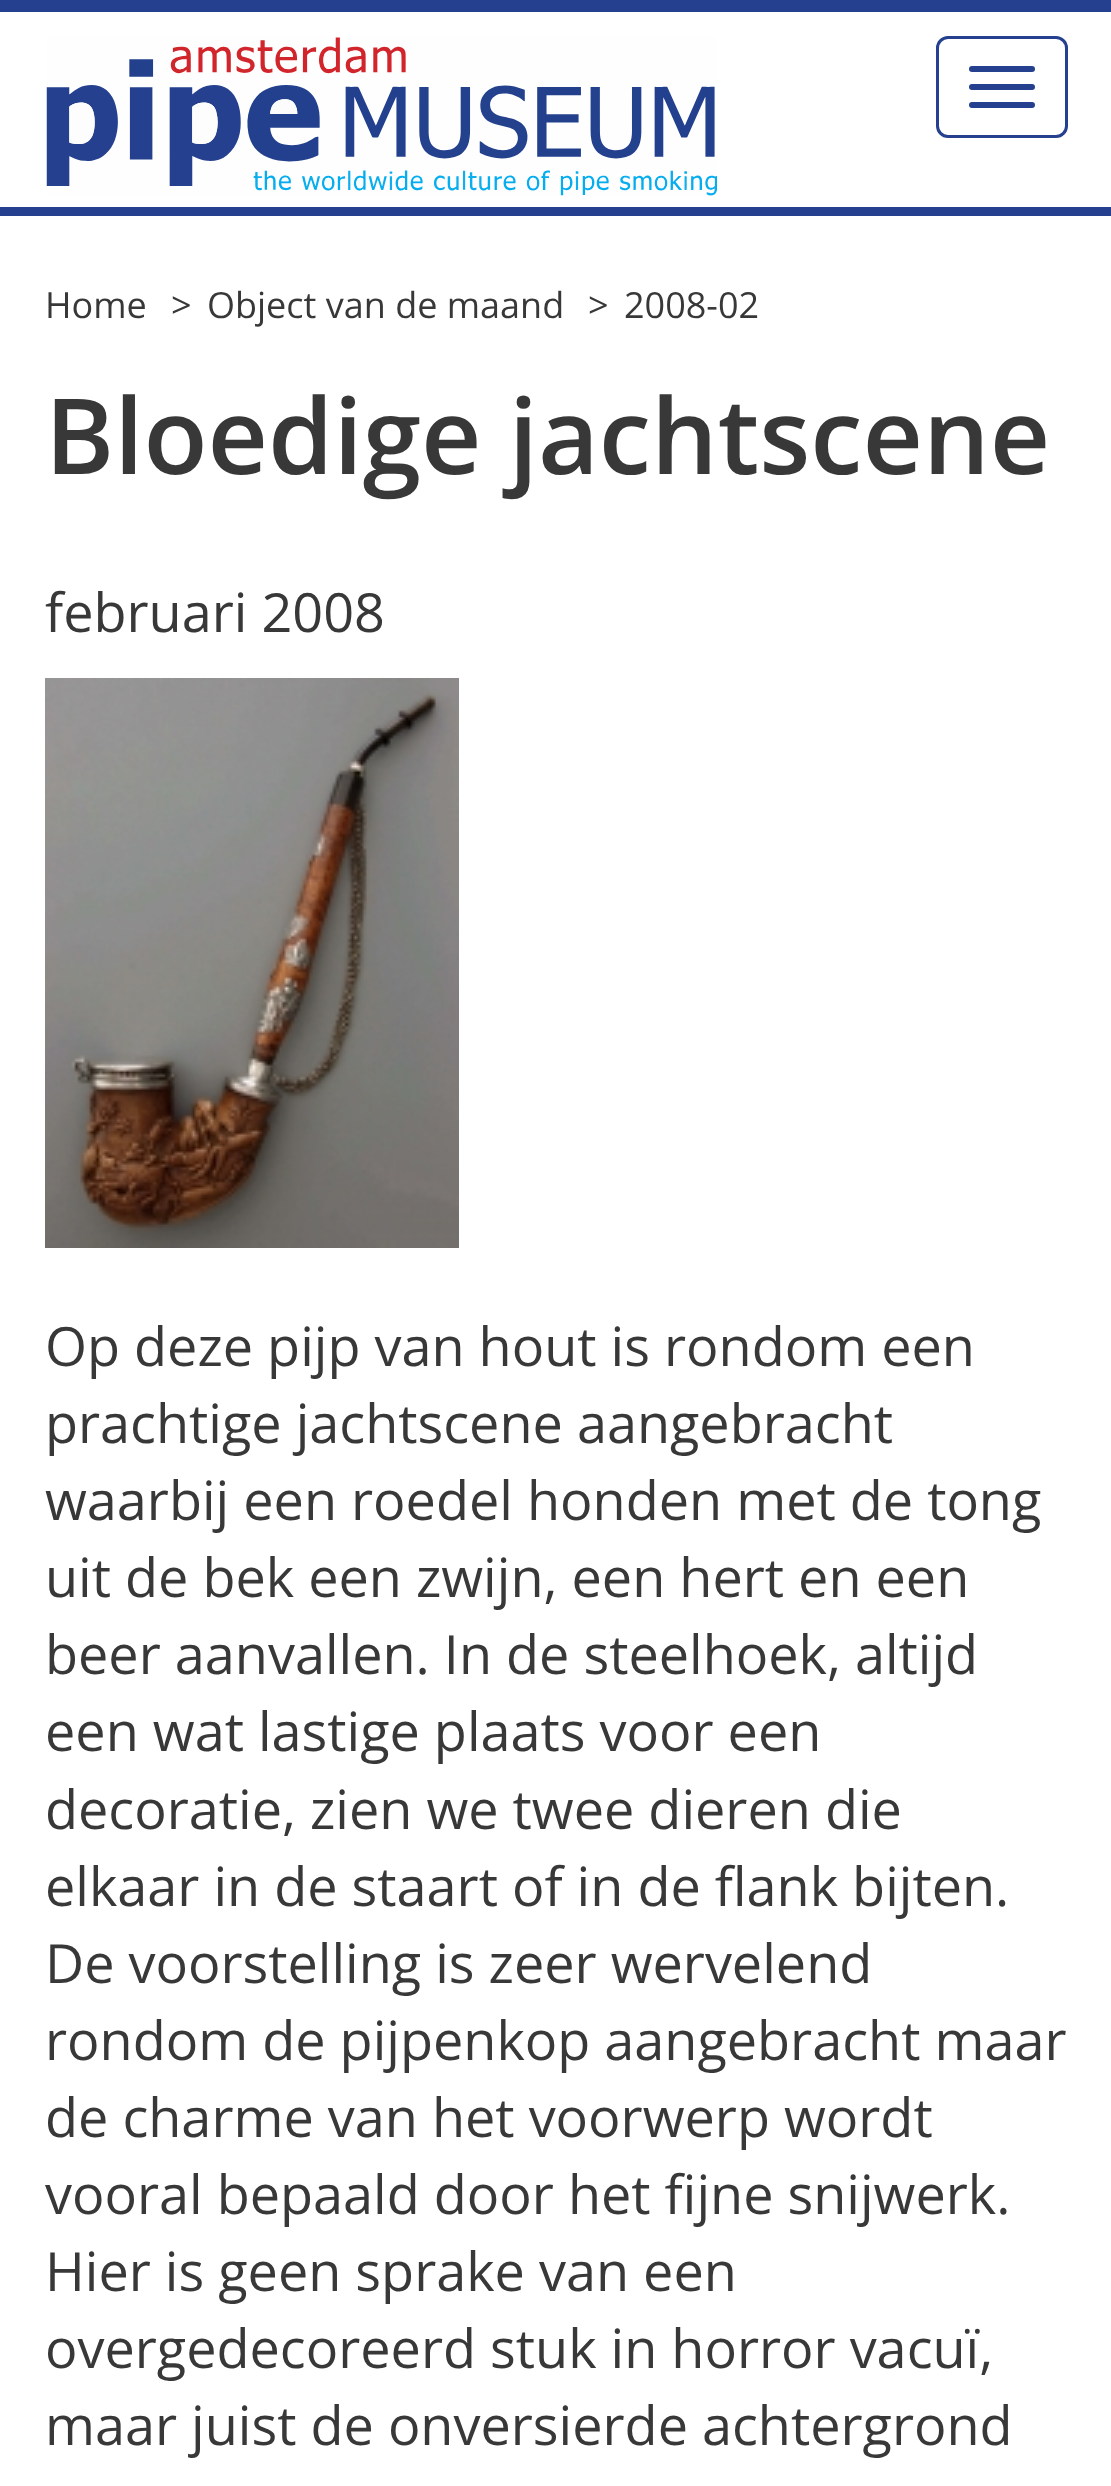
<!DOCTYPE html>
<meta charset="utf-8">
<style>body { margin: 0 } canvas { display: block }</style>
<canvas id="canvas" width="1111" height="2486"></canvas>
<script type="module">
  const canvas = document.getElementById("canvas");
  const ctx = canvas.getContext("2d");
  ctx.miterLimit = 4;
  ctx.fontKerning = "normal";
  async function loadImage(src) {
    const img = new Image();
    img.src = src;
    await img.decode();
    return img;
  }

  ctx.fillStyle = "#ffffff";
  ctx.fillRect(0, 0, 1111, 2486);
  ctx.fillStyle = "#24408e";
  ctx.fillRect(0, 0, 1111, 12);
  ctx.fillRect(0, 207, 1111, 9);
  ctx.drawImage(await loadImage("img1.png"), 46, 37, 671, 159);
  ctx.beginPath();
  ctx.roundRect(937.5, 37.5, 129, 99, 10.5);
  ctx.strokeStyle = "#24408e";
  ctx.lineWidth = 3;
  ctx.stroke();
  ctx.beginPath();
  ctx.roundRect(969, 66, 66, 6, 3);
  ctx.fill();
  ctx.beginPath();
  ctx.roundRect(969, 84, 66, 6, 3);
  ctx.fill();
  ctx.beginPath();
  ctx.roundRect(969, 102, 66, 6, 3);
  ctx.fill();
  ctx.font = "36px Open Sans";
  ctx.fillStyle = "#383838";
  ctx.fillText("Home", 45, 318);
  ctx.fillText(">", 171, 318);
  ctx.fillText("Object van de maand", 207, 318);
  ctx.fillText(">", 588, 318);
  ctx.fillText("2008-02", 624, 318);
  ctx.font = "600 105px Open Sans";
  ctx.fillText("Bloedige jachtscene", 45, 474);
  ctx.font = "54px Open Sans";
  ctx.fillText("februari 2008", 45, 632);
  ctx.drawImage(await loadImage("img2.png"), 45, 678, 414, 570);
  ctx.fillText("Op deze pijp van hout is rondom een", 45, 1366);
  ctx.fillText("prachtige jachtscene aangebracht", 45, 1443);
  ctx.fillText("waarbij een roedel honden met de tong", 45, 1520);
  ctx.fillText("uit de bek een zwijn, een hert en een", 45, 1597);
  ctx.fillText("beer aanvallen. In de steelhoek, altijd", 45, 1674);
  ctx.fillText("een wat lastige plaats voor een", 45, 1751);
  ctx.fillText("decoratie, zien we twee dieren die", 45, 1829);
  ctx.fillText("elkaar in de staart of in de flank bijten.", 45, 1906);
  ctx.fillText("De voorstelling is zeer wervelend", 45, 1983);
  ctx.fillText("rondom de pijpenkop aangebracht maar", 45, 2060);
  ctx.fillText("de charme van het voorwerp wordt", 45, 2137);
  ctx.fillText("vooral bepaald door het fijne snijwerk.", 45, 2214);
  ctx.fillText("Hier is geen sprake van een", 45, 2291);
  ctx.fillText("overgedecoreerd stuk in horror vacuï,", 45, 2368);
  ctx.fillText("maar juist de onversierde achtergrond", 45, 2445);
</script>
